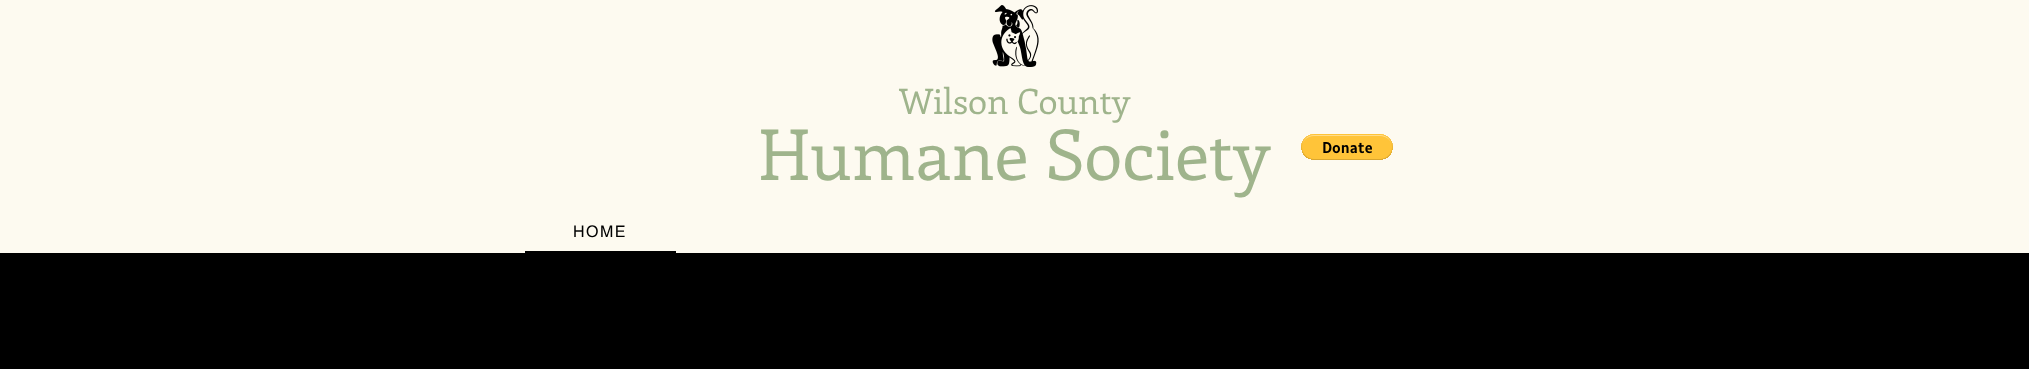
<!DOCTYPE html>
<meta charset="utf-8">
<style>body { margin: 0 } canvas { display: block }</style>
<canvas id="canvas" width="2029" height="369"></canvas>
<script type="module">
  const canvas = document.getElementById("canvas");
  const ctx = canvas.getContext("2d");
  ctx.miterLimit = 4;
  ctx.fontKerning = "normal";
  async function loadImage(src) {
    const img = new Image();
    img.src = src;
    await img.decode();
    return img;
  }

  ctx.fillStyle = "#fdfaf0";
  ctx.fillRect(0, 0, 2029, 369);
  ctx.drawImage(await loadImage("img1.png"), 992, 5, 47, 62);
  ctx.font = "35px Enriqueta";
  ctx.fillStyle = "#9fb48c";
  ctx.fillText("Wilson County", 899, 114);
  ctx.font = "70px Enriqueta";
  ctx.fillText("Humane Society", 759, 180);
  ctx.drawImage(await loadImage("img2.png"), 1301, 134, 92, 26);
  ctx.fillStyle = "#000000";
  ctx.fillRect(525, 251, 151, 2);
  ctx.letterSpacing = "1.5px";
  ctx.font = "16px helvetica";
  ctx.fillText("HOME", 573, 237);
  ctx.fillRect(0, 253, 2029, 116);
</script>
